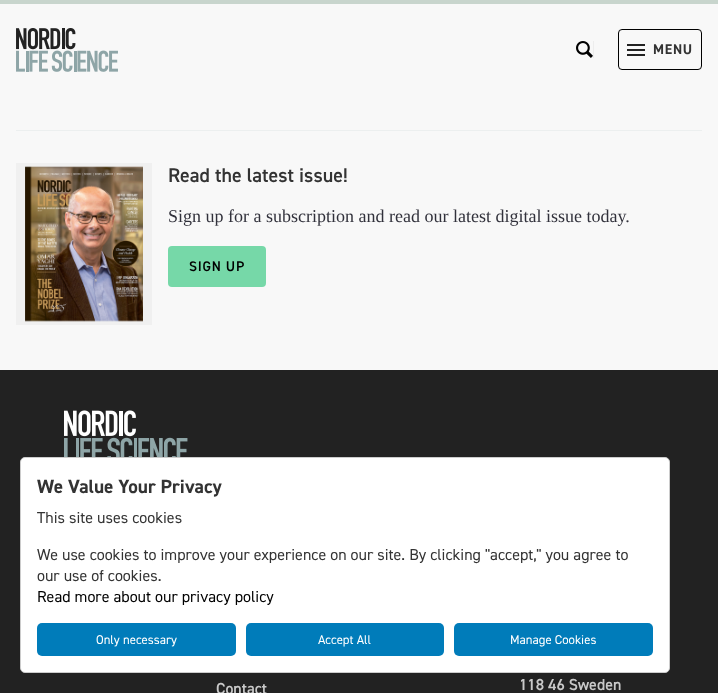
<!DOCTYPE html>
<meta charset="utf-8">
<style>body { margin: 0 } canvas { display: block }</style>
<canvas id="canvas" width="718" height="693"></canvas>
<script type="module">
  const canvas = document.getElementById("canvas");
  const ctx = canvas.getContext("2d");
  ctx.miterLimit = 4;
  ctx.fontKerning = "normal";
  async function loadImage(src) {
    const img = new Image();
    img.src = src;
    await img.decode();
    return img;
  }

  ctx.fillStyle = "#f8f8f8";
  ctx.fillRect(0, 0, 718, 693);
  ctx.fillStyle = "#c8d5cd";
  ctx.fillRect(0, 0, 718, 4);
  ctx.drawImage(await loadImage("img1.png"), 16, 28, 102, 44);
  ctx.drawImage(await loadImage("img2.png"), 576, 41, 17, 17);
  ctx.fillStyle = "#ededed";
  ctx.fillRect(593, 41, 1, 17);
  ctx.beginPath();
  ctx.roundRect(618.5, 29.5, 83, 40, 3.5);
  ctx.strokeStyle = "#000000";
  ctx.stroke();
  ctx.fillStyle = "#222222";
  ctx.fillRect(627, 44, 18, 2);
  ctx.fillRect(627, 49, 18, 2);
  ctx.fillRect(627, 54, 18, 2);
  ctx.letterSpacing = "0.75px";
  ctx.font = "bold 14px 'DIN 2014'";
  ctx.fillStyle = "#333333";
  ctx.fillText("MENU", 653, 54);
  ctx.fillStyle = "#ecefef";
  ctx.fillRect(16, 130, 686, 1);
  ctx.drawImage(await loadImage("img3.png"), 16, 163, 136, 162);
  ctx.letterSpacing = "0px";
  ctx.font = "600 20px 'DIN 2014'";
  ctx.fillStyle = "#333333";
  ctx.fillText("Read the latest issue!", 168, 182);
  ctx.font = "18px Liberation Serif";
  ctx.fillStyle = "#31313b";
  ctx.fillText("Sign up for a subscription and read our latest digital issue today.", 168, 222);
  ctx.fillStyle = "#76d8a8";
  ctx.beginPath();
  ctx.roundRect(168, 246, 98, 41, 4);
  ctx.fill();
  ctx.letterSpacing = "0.75px";
  ctx.font = "600 14px 'DIN 2014'";
  ctx.fillStyle = "#000000";
  ctx.fillText("SIGN UP", 189, 271);
  ctx.fillStyle = "#222222";
  ctx.fillRect(0, 370, 718, 323);
  ctx.fillStyle = "#ffffff";
  ctx.beginPath();
  ctx.roundRect(20.5, 457.5, 649, 215, 4.5);
  ctx.fill();
  ctx.strokeStyle = "#cccccc";
  ctx.stroke();
  ctx.letterSpacing = "0px";
  ctx.font = "bold 19.25px 'DIN 2014'";
  ctx.fillStyle = "#333333";
  ctx.fillText("We Value Your Privacy", 37, 493);
  ctx.font = "16px 'DIN 2014'";
  ctx.fillText("This site uses cookies", 37, 523);
  ctx.fillText("We use cookies to improve your experience on our site. By clicking \"accept,\" you agree to", 37, 560);
  ctx.fillText("our use of cookies.", 37, 581);
  ctx.fillStyle = "#000000";
  ctx.fillText("Read more about our privacy policy", 37, 602);
  ctx.fillStyle = "#007cba";
  ctx.beginPath();
  ctx.roundRect(37, 623, 199, 33, 5);
  ctx.fill();
  ctx.font = "12.75px 'DIN 2014'";
  ctx.fillStyle = "#ffffff";
  ctx.fillText("Only necessary", 96, 644);
  ctx.fillStyle = "#007cba";
  ctx.beginPath();
  ctx.roundRect(246, 623, 198, 33, 5);
  ctx.fill();
  ctx.fillStyle = "#ffffff";
  ctx.fillText("Accept All", 318, 644);
  ctx.fillStyle = "#007cba";
  ctx.beginPath();
  ctx.roundRect(454, 623, 199, 33, 5);
  ctx.fill();
  ctx.fillStyle = "#ffffff";
  ctx.fillText("Manage Cookies", 510, 644);
  ctx.drawImage(await loadImage("img4.png"), 64, 410, 124, 47);
  ctx.font = "600 16px 'DIN 2014'";
  ctx.fillStyle = "#c9c9c9";
  ctx.fillText("Contact", 216, 694);
  ctx.fillText("118 46 Sweden", 519, 690);
</script>
